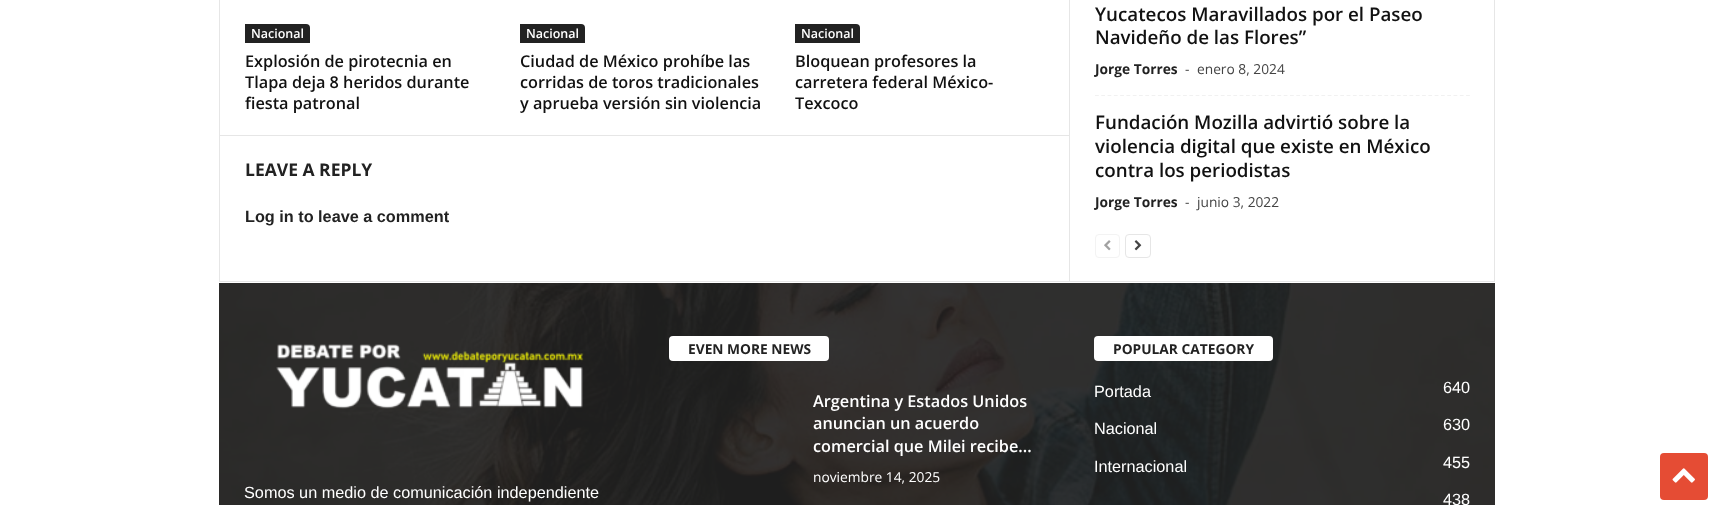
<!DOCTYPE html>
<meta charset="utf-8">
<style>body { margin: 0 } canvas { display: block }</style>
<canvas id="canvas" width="1713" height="505"></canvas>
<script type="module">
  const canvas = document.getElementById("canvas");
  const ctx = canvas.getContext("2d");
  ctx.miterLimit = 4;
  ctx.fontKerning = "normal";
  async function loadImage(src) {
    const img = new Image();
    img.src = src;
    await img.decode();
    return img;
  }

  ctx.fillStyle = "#ffffff";
  ctx.fillRect(0, 0, 1713, 505);
  ctx.fillStyle = "#e6e6e6";
  ctx.fillRect(219, 281, 1276, 1);
  ctx.fillRect(219, 0, 1, 281);
  ctx.fillStyle = "#222222";
  ctx.beginPath();
  ctx.roundRect(245, 24, 65, 19, [0, 4, 0, 0]);
  ctx.fill();
  ctx.font = "600 12.5px Open Sans";
  ctx.fillStyle = "#ffffff";
  ctx.fillText("Nacional", 251, 38);
  ctx.font = "600 16.25px Open Sans";
  ctx.fillStyle = "#111111";
  ctx.fillText("Explosión de pirotecnia en", 245, 67);
  ctx.fillText("Tlapa deja 8 heridos durante", 245, 88);
  ctx.fillText("fiesta patronal", 245, 109);
  ctx.fillStyle = "#222222";
  ctx.beginPath();
  ctx.roundRect(520, 24, 65, 19, [0, 4, 0, 0]);
  ctx.fill();
  ctx.font = "600 12.5px Open Sans";
  ctx.fillStyle = "#ffffff";
  ctx.fillText("Nacional", 526, 38);
  ctx.font = "600 16.25px Open Sans";
  ctx.fillStyle = "#111111";
  ctx.fillText("Ciudad de México prohíbe las", 520, 67);
  ctx.fillText("corridas de toros tradicionales", 520, 88);
  ctx.fillText("y aprueba versión sin violencia", 520, 109);
  ctx.fillStyle = "#222222";
  ctx.beginPath();
  ctx.roundRect(795, 24, 65, 19, [0, 4, 0, 0]);
  ctx.fill();
  ctx.font = "600 12.5px Open Sans";
  ctx.fillStyle = "#ffffff";
  ctx.fillText("Nacional", 801, 38);
  ctx.font = "600 16.25px Open Sans";
  ctx.fillStyle = "#111111";
  ctx.fillText("Bloquean profesores la", 795, 67);
  ctx.fillText("carretera federal México-", 795, 88);
  ctx.fillText("Texcoco", 795, 109);
  ctx.fillStyle = "#e6e6e6";
  ctx.fillRect(220, 135, 849, 1);
  ctx.font = "bold 17.5px Open Sans";
  ctx.fillStyle = "#222222";
  ctx.fillText("LEAVE A REPLY", 245, 176);
  ctx.font = "bold 16.25px Liberation Sans";
  ctx.fillText("Log in to leave a comment", 245, 222);
  ctx.fillStyle = "#e6e6e6";
  ctx.fillRect(1069, 0, 1, 281);
  ctx.beginPath();
  ctx.moveTo(1095, 95.5);
  ctx.lineTo(1470, 95.5);
  ctx.strokeStyle = "#f1f1f1";
  ctx.lineWidth = 1.2;
  ctx.setLineDash([3.75, 2.54]);
  ctx.stroke();
  ctx.font = "600 18.75px Open Sans";
  ctx.fillStyle = "#111111";
  ctx.fillText("Yucatecos Maravillados por el Paseo", 1095, 21);
  ctx.fillText("Navideño de las Flores”", 1095, 44);
  ctx.font = "bold 13.75px Open Sans";
  ctx.fillStyle = "#222222";
  ctx.fillText("Jorge Torres", 1095, 74);
  ctx.font = "13.75px Open Sans";
  ctx.fillStyle = "#444444";
  ctx.fillText("-", 1185, 74);
  ctx.fillText("enero 8, 2024", 1197, 74);
  ctx.font = "600 18.75px Open Sans";
  ctx.fillStyle = "#111111";
  ctx.fillText("Fundación Mozilla advirtió sobre la", 1095, 129);
  ctx.fillText("violencia digital que existe en México", 1095, 153);
  ctx.fillText("contra los periodistas", 1095, 177);
  ctx.font = "bold 13.75px Open Sans";
  ctx.fillStyle = "#222222";
  ctx.fillText("Jorge Torres", 1095, 207);
  ctx.font = "13.75px Open Sans";
  ctx.fillStyle = "#444444";
  ctx.fillText("-", 1185, 207);
  ctx.fillText("junio 3, 2022", 1197, 207);
  ctx.beginPath();
  ctx.roundRect(1095.5, 234.5, 24, 23, 3.5);
  ctx.strokeStyle = "#f3f3f3";
  ctx.lineWidth = 1;
  ctx.setLineDash([]);
  ctx.stroke();
  ctx.drawImage(await loadImage("img1.png"), 1104, 240, 7, 11);
  ctx.beginPath();
  ctx.roundRect(1125.5, 234.5, 25, 23, 3.5);
  ctx.strokeStyle = "#e6e6e6";
  ctx.stroke();
  ctx.drawImage(await loadImage("img2.png"), 1134, 240, 8, 11);
  ctx.fillStyle = "#e6e6e6";
  ctx.fillRect(1494, 0, 1, 281);
  ctx.fillStyle = "#222222";
  ctx.fillRect(219, 283, 1276, 222);
  ctx.drawImage(await loadImage("img3.png"), 219, 283, 1276, 222);
  ctx.drawImage(await loadImage("img4.png"), 276, 344, 308, 65);
  ctx.font = "16.25px Liberation Sans";
  ctx.fillStyle = "#ffffff";
  ctx.fillText("Somos un medio de comunicación independiente", 244, 498);
  ctx.beginPath();
  ctx.roundRect(669, 336, 160, 25, 4);
  ctx.fill();
  ctx.font = "bold 13.75px Open Sans";
  ctx.fillStyle = "#222222";
  ctx.fillText("EVEN MORE NEWS", 688, 354);
  ctx.font = "600 16.25px Open Sans";
  ctx.fillStyle = "#ffffff";
  ctx.fillText("Argentina y Estados Unidos", 813, 407);
  ctx.fillText("anuncian un acuerdo", 813, 429);
  ctx.fillText("comercial que Milei recibe...", 813, 452);
  ctx.font = "13.75px Open Sans";
  ctx.fillText("noviembre 14, 2025", 813, 482);
  ctx.beginPath();
  ctx.roundRect(1094, 336, 179, 25, 4);
  ctx.fill();
  ctx.font = "bold 13.75px Open Sans";
  ctx.fillStyle = "#222222";
  ctx.fillText("POPULAR CATEGORY", 1113, 354);
  ctx.font = "16.25px Liberation Sans";
  ctx.fillStyle = "#ffffff";
  ctx.fillText("Portada", 1094, 397);
  ctx.fillText("640", 1443, 393);
  ctx.fillText("Nacional", 1094, 434);
  ctx.fillText("630", 1443, 430);
  ctx.fillText("Internacional", 1094, 472);
  ctx.fillText("455", 1443, 468);
  ctx.fillText("438", 1443, 505);
  ctx.fillStyle = "#e54c34";
  ctx.beginPath();
  ctx.roundRect(1660, 453, 48, 47, 4);
  ctx.fill();
  ctx.drawImage(await loadImage("img5.png"), 1672, 468, 23, 15);
</script>
